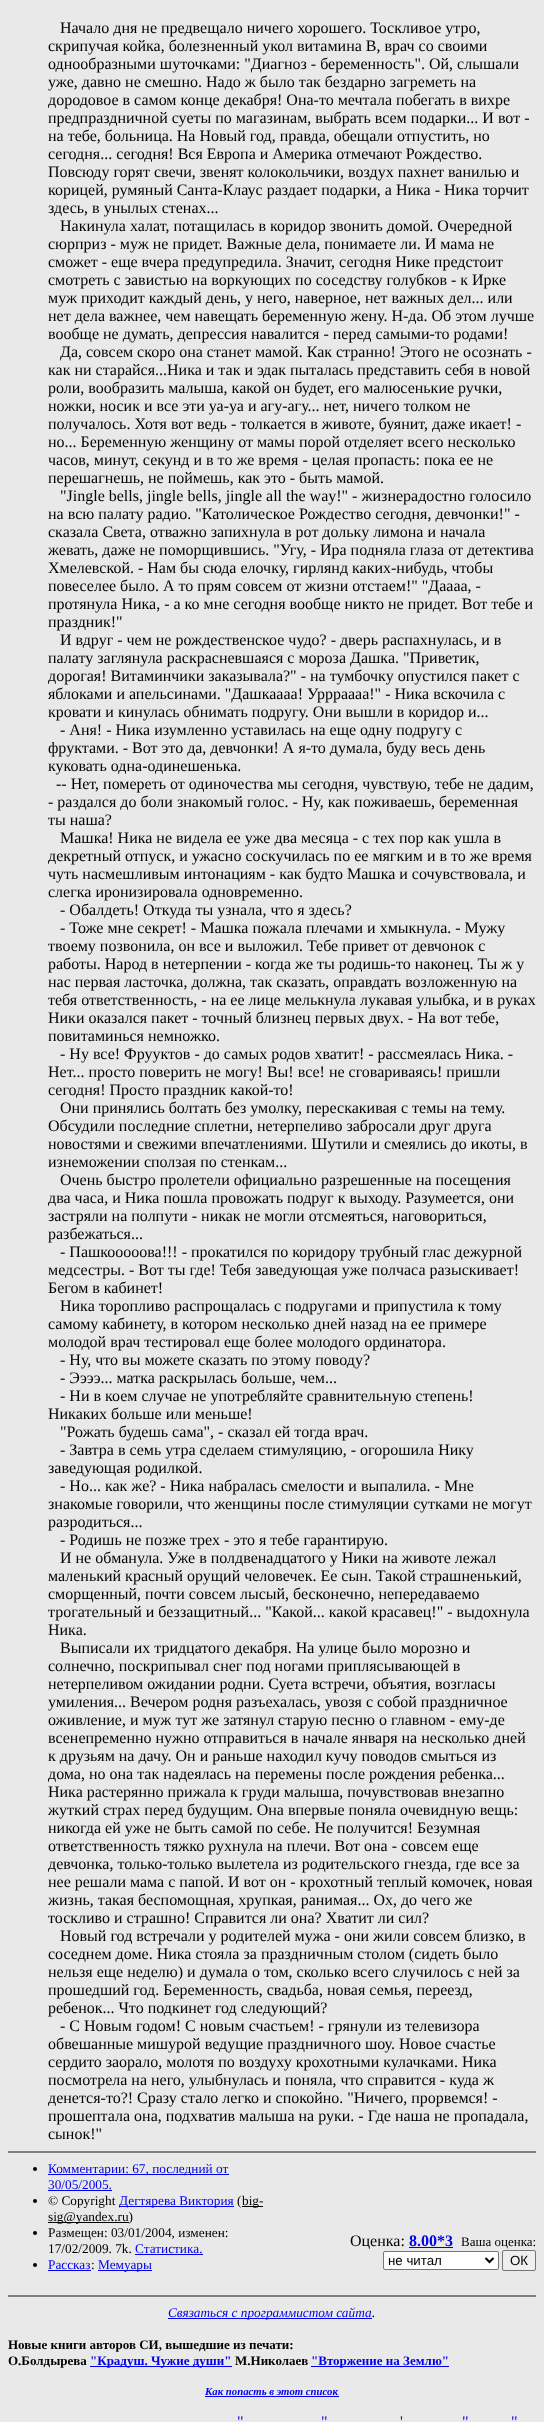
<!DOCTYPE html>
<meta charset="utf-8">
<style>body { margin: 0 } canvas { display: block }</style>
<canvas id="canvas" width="544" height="2422"></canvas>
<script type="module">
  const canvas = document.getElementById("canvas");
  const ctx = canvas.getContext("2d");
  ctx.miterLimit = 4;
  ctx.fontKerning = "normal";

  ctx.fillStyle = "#e9e9e9";
  ctx.fillRect(0, 0, 544, 2422);
  ctx.font = "16px Liberation Serif";
  ctx.fillStyle = "#000000";
  ctx.fillText("Начало дня не предвещало ничего хорошего. Тоскливое утро,", 60, 33);
  ctx.fillText("скрипучая койка, болезненный укол витамина В, врач со своими", 48, 51);
  ctx.fillText("однообразными шуточками: \"Диагноз - беременность\". Ой, слышали", 48, 69);
  ctx.fillText("уже, давно не смешно. Надо ж было так бездарно загреметь на", 48, 87);
  ctx.fillText("дородовое в самом конце декабря! Она-то мечтала побегать в вихре", 48, 105);
  ctx.fillText("предпраздничной суеты по магазинам, выбрать всем подарки... И вот -", 48, 123);
  ctx.fillText("на тебе, больница. На Новый год, правда, обещали отпустить, но", 48, 141);
  ctx.fillText("сегодня... сегодня! Вся Европа и Америка отмечают Рождество.", 48, 159);
  ctx.fillText("Повсюду горят свечи, звенят колокольчики, воздух пахнет ванилью и", 48, 177);
  ctx.fillText("корицей, румяный Санта-Клаус раздает подарки, а Ника - Ника торчит", 48, 195);
  ctx.fillText("здесь, в унылых стенах...", 48, 213);
  ctx.fillText("Накинула халат, потащилась в коридор звонить домой. Очередной", 60, 231);
  ctx.fillText("сюрприз - муж не придет. Важные дела, понимаете ли. И мама не", 48, 249);
  ctx.fillText("сможет - еще вчера предупредила. Значит, сегодня Нике предстоит", 48, 267);
  ctx.fillText("смотреть с завистью на воркующих по соседству голубков - к Ирке", 48, 285);
  ctx.fillText("муж приходит каждый день, у него, наверное, нет важных дел... или", 48, 303);
  ctx.fillText("нет дела важнее, чем навещать беременную жену. Н-да. Об этом лучше", 48, 321);
  ctx.fillText("вообще не думать, депрессия навалится - перед самыми-то родами!", 48, 339);
  ctx.fillText("Да, совсем скоро она станет мамой. Как странно! Этого не осознать -", 60, 357);
  ctx.fillText("как ни старайся...Ника и так и эдак пыталась представить себя в новой", 48, 375);
  ctx.fillText("роли, вообразить малыша, какой он будет, его малюсенькие ручки,", 48, 393);
  ctx.fillText("ножки, носик и все эти уа-уа и агу-агу... нет, ничего толком не", 48, 411);
  ctx.fillText("получалось. Хотя вот ведь - толкается в животе, буянит, даже икает! -", 48, 429);
  ctx.fillText("но... Беременную женщину от мамы порой отделяет всего несколько", 48, 447);
  ctx.fillText("часов, минут, секунд и в то же время - целая пропасть: пока ее не", 48, 465);
  ctx.fillText("перешагнешь, не поймешь, как это - быть мамой.", 48, 483);
  ctx.fillText("\"Jingle bells, jingle bells, jingle all the way!\" - жизнерадостно голосило", 60, 501);
  ctx.fillText("на всю палату радио. \"Католическое Рождество сегодня, девчонки!\" -", 48, 519);
  ctx.fillText("сказала Света, отважно запихнула в рот дольку лимона и начала", 48, 537);
  ctx.fillText("жевать, даже не поморщившись. \"Угу, - Ира подняла глаза от детектива", 48, 555);
  ctx.fillText("Хмелевской. - Нам бы сюда елочку, гирлянд каких-нибудь, чтобы", 48, 573);
  ctx.fillText("повеселее было. А то прям совсем от жизни отстаем!\" \"Даааа, -", 48, 591);
  ctx.fillText("протянула Ника, - а ко мне сегодня вообще никто не придет. Вот тебе и", 48, 609);
  ctx.fillText("праздник!\"", 48, 627);
  ctx.fillText("И вдруг - чем не рождественское чудо? - дверь распахнулась, и в", 60, 645);
  ctx.fillText("палату заглянула раскрасневшаяся с мороза Дашка. \"Приветик,", 48, 663);
  ctx.fillText("дорогая! Витаминчики заказывала?\" - на тумбочку опустился пакет с", 48, 681);
  ctx.fillText("яблоками и апельсинами. \"Дашкаааа! Уррраааа!\" - Ника вскочила с", 48, 699);
  ctx.fillText("кровати и кинулась обнимать подругу. Они вышли в коридор и...", 48, 717);
  ctx.fillText("- Аня! - Ника изумленно уставилась на еще одну подругу с", 60, 735);
  ctx.fillText("фруктами. - Вот это да, девчонки! А я-то думала, буду весь день", 48, 753);
  ctx.fillText("куковать одна-одинешенька.", 48, 771);
  ctx.fillText("-- Нет, помереть от одиночества мы сегодня, чувствую, тебе не дадим,", 56, 789);
  ctx.fillText("- раздался до боли знакомый голос. - Ну, как поживаешь, беременная", 48, 807);
  ctx.fillText("ты наша?", 48, 825);
  ctx.fillText("Машка! Ника не видела ее уже два месяца - с тех пор как ушла в", 60, 843);
  ctx.fillText("декретный отпуск, и ужасно соскучилась по ее мягким и в то же время", 48, 861);
  ctx.fillText("чуть насмешливым интонациям - как будто Машка и сочувствовала, и", 48, 879);
  ctx.fillText("слегка иронизировала одновременно.", 48, 897);
  ctx.fillText("- Обалдеть! Откуда ты узнала, что я здесь?", 60, 915);
  ctx.fillText("- Тоже мне секрет! - Машка пожала плечами и хмыкнула. - Мужу", 60, 933);
  ctx.fillText("твоему позвонила, он все и выложил. Тебе привет от девчонок с", 48, 951);
  ctx.fillText("работы. Народ в нетерпении - когда же ты родишь-то наконец. Ты ж у", 48, 969);
  ctx.fillText("нас первая ласточка, должна, так сказать, оправдать возложенную на", 48, 987);
  ctx.fillText("тебя ответственность, - на ее лице мелькнула лукавая улыбка, и в руках", 48, 1005);
  ctx.fillText("Ники оказался пакет - точный близнец первых двух. - На вот тебе,", 48, 1023);
  ctx.fillText("повитаминься немножко.", 48, 1041);
  ctx.fillText("- Ну все! Фрууктов - до самых родов хватит! - рассмеялась Ника. -", 60, 1059);
  ctx.fillText("Нет... просто поверить не могу! Вы! все! не сговариваясь! пришли", 48, 1077);
  ctx.fillText("сегодня! Просто праздник какой-то!", 48, 1095);
  ctx.fillText("Они принялись болтать без умолку, перескакивая с темы на тему.", 60, 1113);
  ctx.fillText("Обсудили последние сплетни, нетерпеливо забросали друг друга", 48, 1131);
  ctx.fillText("новостями и свежими впечатлениями. Шутили и смеялись до икоты, в", 48, 1149);
  ctx.fillText("изнеможении сползая по стенкам...", 48, 1167);
  ctx.fillText("Очень быстро пролетели официально разрешенные на посещения", 60, 1185);
  ctx.fillText("два часа, и Ника пошла провожать подруг к выходу. Разумеется, они", 48, 1203);
  ctx.fillText("застряли на полпути - никак не могли отсмеяться, наговориться,", 48, 1221);
  ctx.fillText("разбежаться...", 48, 1239);
  ctx.fillText("- Пашкооооова!!! - прокатился по коридору трубный глас дежурной", 60, 1257);
  ctx.fillText("медсестры. - Вот ты где! Тебя заведующая уже полчаса разыскивает!", 48, 1275);
  ctx.fillText("Бегом в кабинет!", 48, 1293);
  ctx.fillText("Ника торопливо распрощалась с подругами и припустила к тому", 60, 1311);
  ctx.fillText("самому кабинету, в котором несколько дней назад на ее примере", 48, 1329);
  ctx.fillText("молодой врач тестировал еще более молодого ординатора.", 48, 1347);
  ctx.fillText("- Ну, что вы можете сказать по этому поводу?", 60, 1365);
  ctx.fillText("- Ээээ... матка раскрылась больше, чем...", 60, 1383);
  ctx.fillText("- Ни в коем случае не употребляйте сравнительную степень!", 60, 1401);
  ctx.fillText("Никаких больше или меньше!", 48, 1419);
  ctx.fillText("\"Рожать будешь сама\", - сказал ей тогда врач.", 60, 1437);
  ctx.fillText("- Завтра в семь утра сделаем стимуляцию, - огорошила Нику", 60, 1455);
  ctx.fillText("заведующая родилкой.", 48, 1473);
  ctx.fillText("- Но... как же? - Ника набралась смелости и выпалила. - Мне", 60, 1491);
  ctx.fillText("знакомые говорили, что женщины после стимуляции сутками не могут", 48, 1509);
  ctx.fillText("разродиться...", 48, 1527);
  ctx.fillText("- Родишь не позже трех - это я тебе гарантирую.", 60, 1545);
  ctx.fillText("И не обманула. Уже в полдвенадцатого у Ники на животе лежал", 60, 1563);
  ctx.fillText("маленький красный орущий человечек. Ее сын. Такой страшненький,", 48, 1581);
  ctx.fillText("сморщенный, почти совсем лысый, бесконечно, непередаваемо", 48, 1599);
  ctx.fillText("трогательный и беззащитный... \"Какой... какой красавец!\" - выдохнула", 48, 1617);
  ctx.fillText("Ника.", 48, 1635);
  ctx.fillText("Выписали их тридцатого декабря. На улице было морозно и", 60, 1653);
  ctx.fillText("солнечно, поскрипывал снег под ногами приплясывающей в", 48, 1671);
  ctx.fillText("нетерпеливом ожидании родни. Суета встречи, объятия, возгласы", 48, 1689);
  ctx.fillText("умиления... Вечером родня разъехалась, увозя с собой праздничное", 48, 1707);
  ctx.fillText("оживление, и муж тут же затянул старую песню о главном - ему-де", 48, 1725);
  ctx.fillText("всенепременно нужно отправиться в начале января на несколько дней", 48, 1743);
  ctx.fillText("к друзьям на дачу. Он и раньше находил кучу поводов смыться из", 48, 1761);
  ctx.fillText("дома, но она так надеялась на перемены после рождения ребенка...", 48, 1779);
  ctx.fillText("Ника растерянно прижала к груди малыша, почувствовав внезапно", 48, 1797);
  ctx.fillText("жуткий страх перед будущим. Она впервые поняла очевидную вещь:", 48, 1815);
  ctx.fillText("никогда ей уже не быть самой по себе. Не получится! Безумная", 48, 1833);
  ctx.fillText("ответственность тяжко рухнула на плечи. Вот она - совсем еще", 48, 1851);
  ctx.fillText("девчонка, только-только вылетела из родительского гнезда, где все за", 48, 1869);
  ctx.fillText("нее решали мама с папой. И вот он - крохотный теплый комочек, новая", 48, 1887);
  ctx.fillText("жизнь, такая беспомощная, хрупкая, ранимая... Ох, до чего же", 48, 1905);
  ctx.fillText("тоскливо и страшно! Справится ли она? Хватит ли сил?", 48, 1923);
  ctx.fillText("Новый год встречали у родителей мужа - они жили совсем близко, в", 60, 1941);
  ctx.fillText("соседнем доме. Ника стояла за праздничным столом (сидеть было", 48, 1959);
  ctx.fillText("нельзя еще неделю) и думала о том, сколько всего случилось с ней за", 48, 1977);
  ctx.fillText("прошедший год. Беременность, свадьба, новая семья, переезд,", 48, 1995);
  ctx.fillText("ребенок... Что подкинет год следующий?", 48, 2013);
  ctx.fillText("- С Новым годом! С новым счастьем! - грянули из телевизора", 60, 2031);
  ctx.fillText("обвешанные мишурой ведущие праздничного шоу. Новое счастье", 48, 2049);
  ctx.fillText("сердито заорало, молотя по воздуху крохотными кулачками. Ника", 48, 2067);
  ctx.fillText("посмотрела на него, улыбнулась и поняла, что справится - куда ж", 48, 2085);
  ctx.fillText("денется-то?! Сразу стало легко и спокойно. \"Ничего, прорвемся! -", 48, 2103);
  ctx.fillText("прошептала она, подхватив малыша на руки. - Где наша не пропадала,", 48, 2121);
  ctx.fillText("сынок!\"", 48, 2139);
  ctx.fillStyle = "#808080";
  ctx.fillRect(8, 2151, 528, 2);
  ctx.fillStyle = "#000000";
  ctx.beginPath();
  ctx.arc(35, 2169, 2, 0, Math.PI * 2);
  ctx.fill();
  ctx.fillStyle = "#0000ee";
  ctx.fillRect(48, 2174, 181, 1);
  ctx.font = "13.3px Liberation Serif";
  ctx.fillText("Комментарии: 67, последний от", 48, 2173);
  ctx.fillText("30/05/2005.", 48, 2189);
  ctx.fillRect(48, 2190, 64, 1);
  ctx.fillStyle = "#000000";
  ctx.beginPath();
  ctx.arc(35, 2201, 2, 0, Math.PI * 2);
  ctx.fill();
  ctx.fillText("© Copyright", 48, 2205);
  ctx.fillStyle = "#0000ee";
  ctx.fillRect(119, 2206, 115, 1);
  ctx.fillText("Дегтярева Виктория", 119, 2205);
  ctx.fillStyle = "#000000";
  ctx.fillText("(", 237, 2205);
  ctx.fillRect(242, 2206, 21, 1);
  ctx.fillText("big-", 242, 2205);
  ctx.fillRect(48, 2222, 81, 1);
  ctx.fillText("sig@yandex.ru)", 48, 2221);
  ctx.beginPath();
  ctx.arc(35, 2233, 2, 0, Math.PI * 2);
  ctx.fill();
  ctx.fillText("Размещен: 03/01/2004, изменен:", 48, 2237);
  ctx.fillText("17/02/2009. 7k.", 48, 2253);
  ctx.fillStyle = "#0000ee";
  ctx.fillText("Статистика.", 135, 2253);
  ctx.fillRect(135, 2254, 68, 1);
  ctx.fillStyle = "#000000";
  ctx.beginPath();
  ctx.arc(35, 2265, 2, 0, Math.PI * 2);
  ctx.fill();
  ctx.fillStyle = "#0000ee";
  ctx.fillText("Рассказ", 48, 2269);
  ctx.fillRect(48, 2270, 43, 1);
  ctx.fillStyle = "#000000";
  ctx.fillText(":", 91, 2269);
  ctx.fillStyle = "#0000ee";
  ctx.fillRect(98, 2270, 54, 1);
  ctx.fillText("Мемуары", 98, 2269);
  ctx.font = "16px Liberation Serif";
  ctx.fillStyle = "#000000";
  ctx.fillText("Оценка:", 350, 2246);
  ctx.font = "bold 16px Liberation Serif";
  ctx.fillStyle = "#0000ee";
  ctx.fillText("8.00*3", 409, 2246);
  ctx.fillRect(409, 2247, 44, 1);
  ctx.font = "13px Liberation Serif";
  ctx.fillStyle = "#000000";
  ctx.fillText("Ваша оценка:", 461, 2246);
  ctx.fillStyle = "#ffffff";
  ctx.beginPath();
  ctx.roundRect(383.5, 2251.5, 115, 18, 1.5);
  ctx.fill();
  ctx.strokeStyle = "#767676";
  ctx.stroke();
  ctx.beginPath();
  ctx.moveTo(485.5, 2258);
  ctx.lineTo(489.5, 2262);
  ctx.lineTo(493.5, 2258);
  ctx.strokeStyle = "#000000";
  ctx.lineWidth = 2;
  ctx.stroke();
  ctx.font = "13.3px Liberation Sans";
  ctx.fillStyle = "#000000";
  ctx.fillText("не читал", 388, 2265);
  ctx.fillStyle = "#efefef";
  ctx.beginPath();
  ctx.roundRect(502.5, 2250.5, 33, 20, 1.5);
  ctx.fill();
  ctx.strokeStyle = "#767676";
  ctx.lineWidth = 1;
  ctx.stroke();
  ctx.fillStyle = "#000000";
  ctx.fillText("ОК", 510, 2265);
  ctx.fillStyle = "#808080";
  ctx.fillRect(8, 2295, 528, 2);
  ctx.fillStyle = "#0000ee";
  ctx.fillRect(168, 2318, 204, 1);
  ctx.font = "italic 13.3px Liberation Serif";
  ctx.fillText("Связаться с программистом сайта", 168, 2317);
  ctx.fillStyle = "#000000";
  ctx.fillText(".", 372, 2317);
  ctx.font = "bold 13px Liberation Serif";
  ctx.fillText("Новые книги авторов СИ, вышедшие из печати:", 8, 2349);
  ctx.fillText("О.Болдырева", 8, 2365);
  ctx.fillStyle = "#0000ee";
  ctx.fillRect(90, 2366, 142, 1);
  ctx.fillText("\"Крадуш. Чужие души\"", 90, 2365);
  ctx.fillStyle = "#000000";
  ctx.fillText("М.Николаев", 235, 2365);
  ctx.fillStyle = "#0000ee";
  ctx.fillRect(311, 2366, 138, 1);
  ctx.fillText("\"Вторжение на Землю\"", 311, 2365);
  ctx.font = "italic bold 10.75px Liberation Serif";
  ctx.fillText("Как попасть в этoт список", 205, 2395);
  ctx.fillRect(205, 2396, 134, 1);
  ctx.font = "16px Liberation Serif";
  ctx.fillText("\"", 237, 2427);
  ctx.fillText("\"", 321, 2427);
  ctx.fillText("'", 400, 2427);
  ctx.fillText("\"", 462, 2427);
  ctx.fillText("\"", 511, 2427);
</script>
